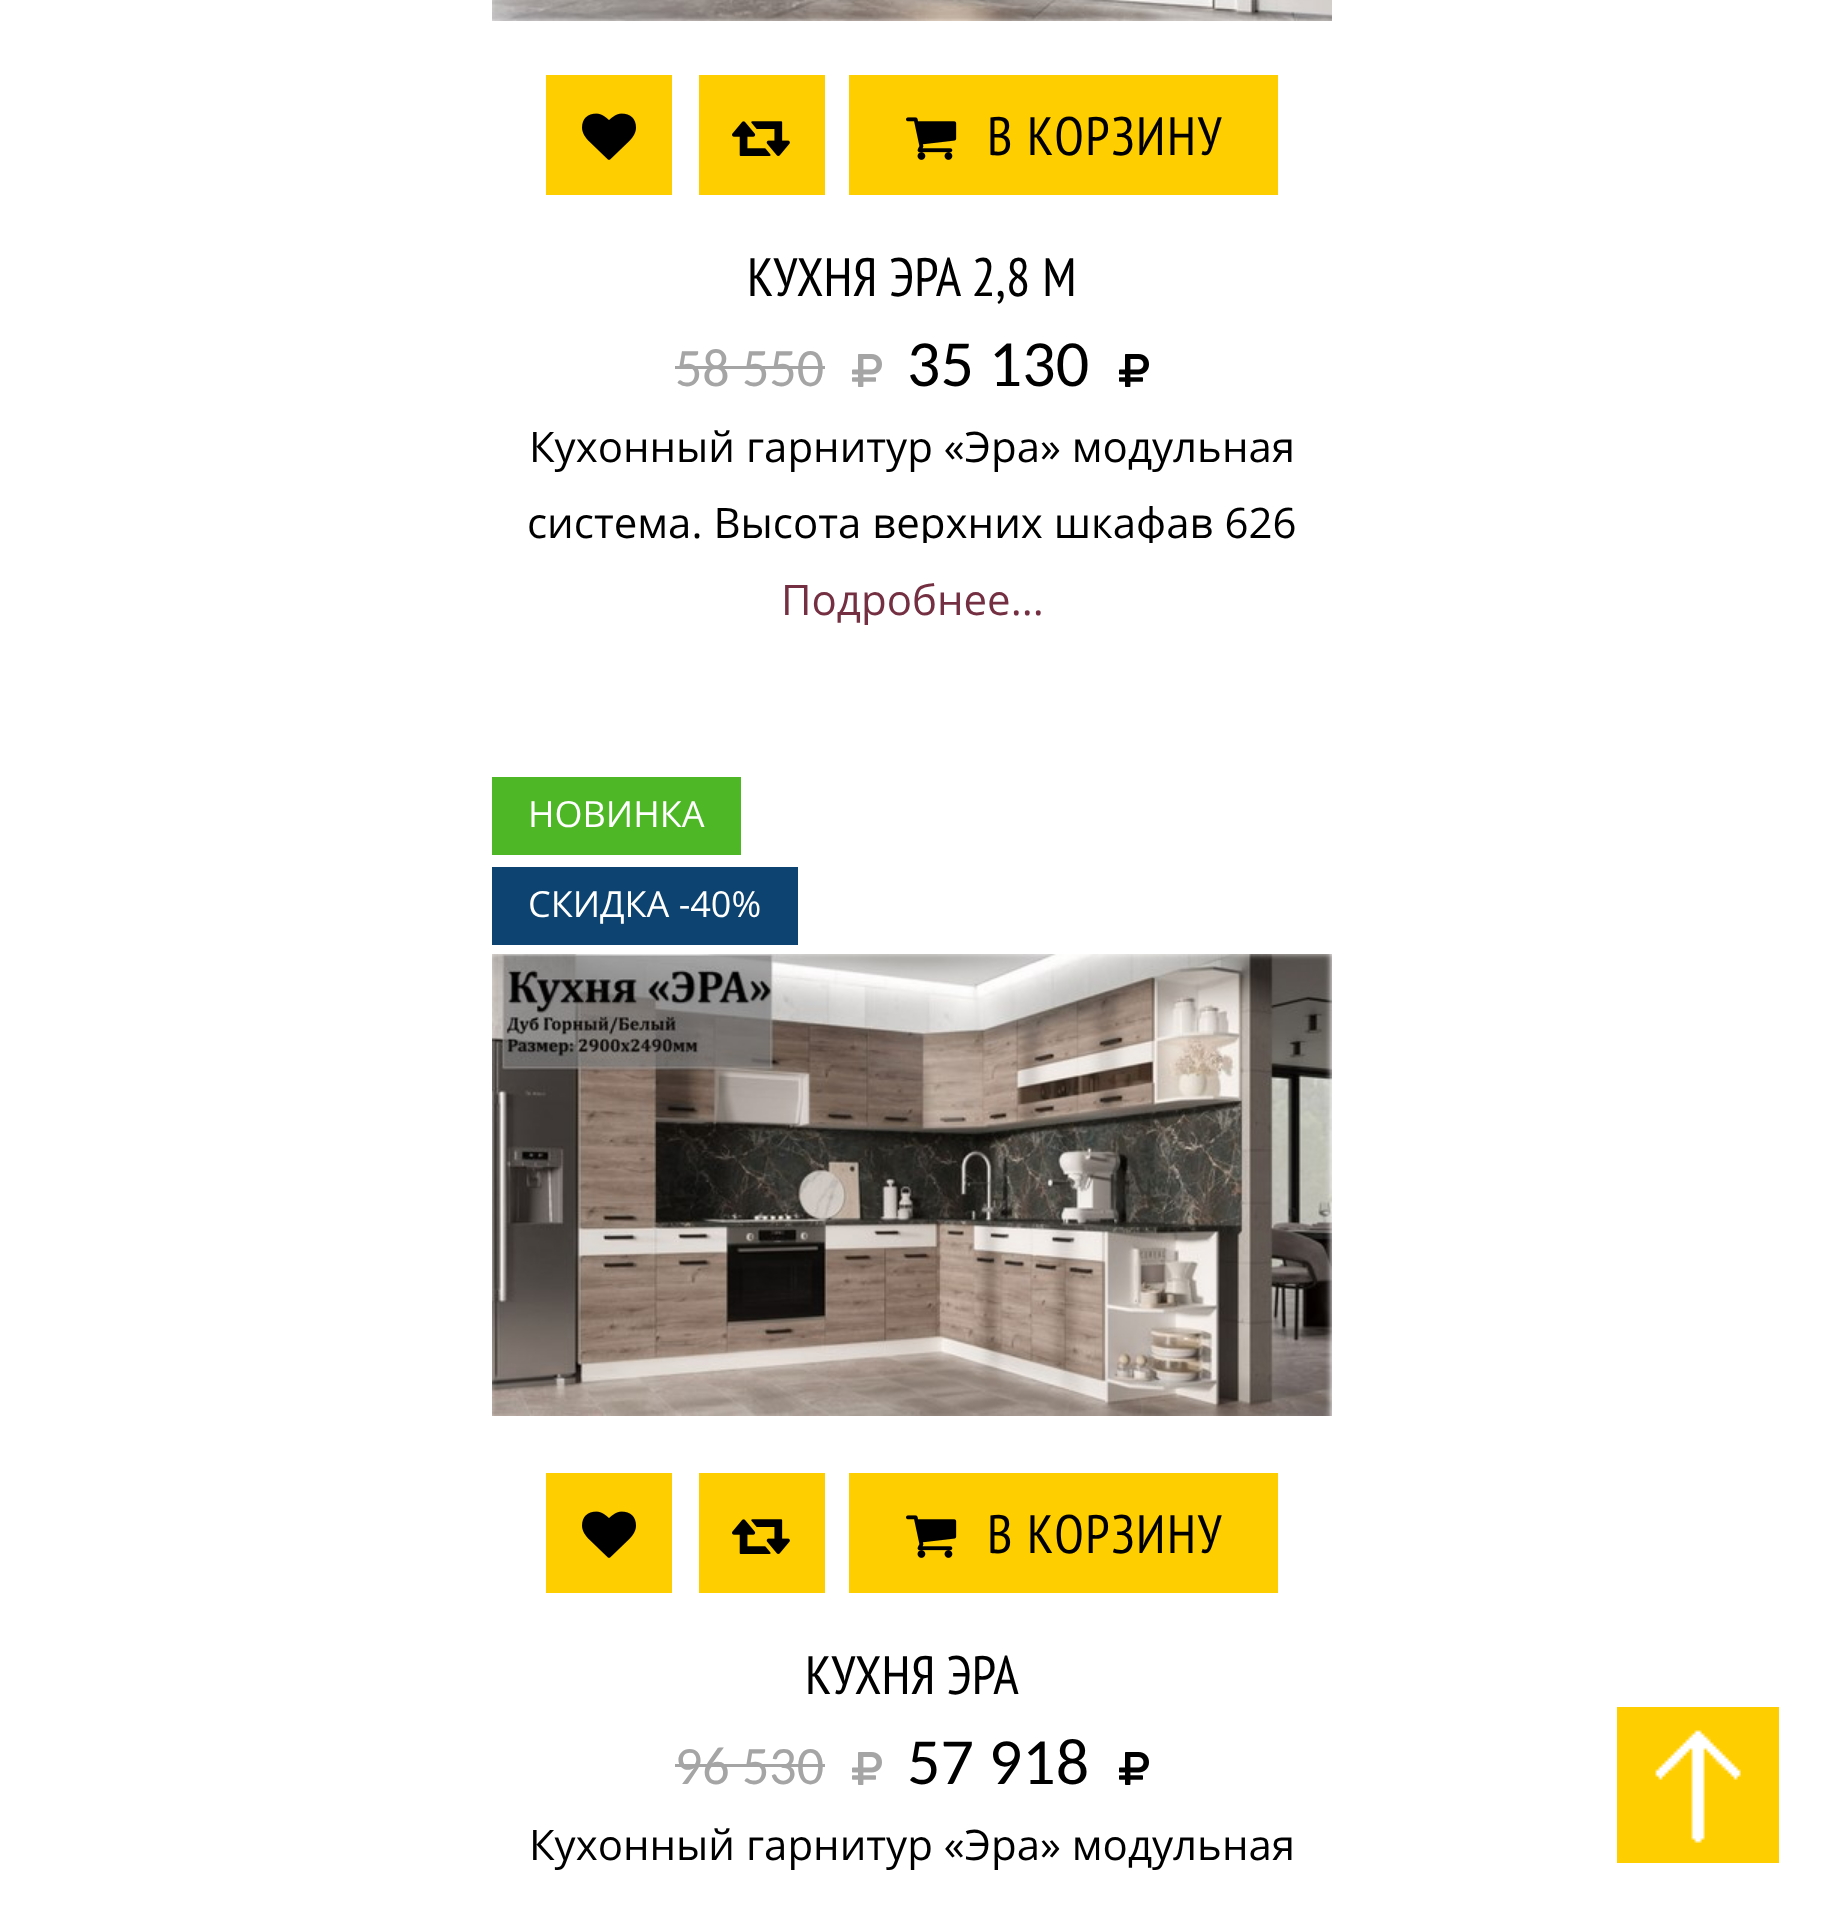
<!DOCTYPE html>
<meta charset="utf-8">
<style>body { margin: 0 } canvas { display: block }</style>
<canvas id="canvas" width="1824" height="1906"></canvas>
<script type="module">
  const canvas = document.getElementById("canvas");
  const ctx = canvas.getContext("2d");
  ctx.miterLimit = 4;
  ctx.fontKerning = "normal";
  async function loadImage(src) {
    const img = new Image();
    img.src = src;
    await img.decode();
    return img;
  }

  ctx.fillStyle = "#ffffff";
  ctx.fillRect(0, 0, 1824, 1906);
  ctx.drawImage(await loadImage("img1.png"), 492, 0, 840, 21);
  ctx.fillStyle = "#ffce00";
  ctx.fillRect(546, 75, 126, 120);
  ctx.drawImage(await loadImage("img2.png"), 582, 113, 54, 47);
  ctx.fillRect(699, 75, 126, 120);
  ctx.drawImage(await loadImage("img3.png"), 732, 121, 58, 35);
  ctx.fillRect(849, 75, 429, 120);
  ctx.drawImage(await loadImage("img4.png"), 906, 117, 51, 43);
  ctx.letterSpacing = "1.5px";
  ctx.font = "54px PT Sans Narrow";
  ctx.fillStyle = "#000000";
  ctx.fillText("В КОРЗИНУ", 987, 155);
  ctx.letterSpacing = "0px";
  ctx.wordSpacing = "0.5px";
  ctx.fillText("КУХНЯ ЭРА 2,8 М", 747, 296);
  ctx.wordSpacing = "0px";
  ctx.font = "54px Carlito";
  ctx.fillStyle = "#a5a5a5";
  ctx.fillText("58 550", 675, 386);
  ctx.fillRect(675, 366, 150, 3);
  ctx.drawImage(await loadImage("img5.png"), 852, 354, 30, 33);
  ctx.font = "66px Carlito";
  ctx.fillStyle = "#000000";
  ctx.fillText("35 130", 907, 386);
  ctx.drawImage(await loadImage("img6.png"), 1119, 354, 30, 33);
  ctx.font = "42px Open Sans";
  ctx.fillText("Кухонный гарнитур «Эра» модульная", 529, 462);
  ctx.save();
  ctx.beginPath();
  ctx.rect(492, 408, 840, 135);
  ctx.clip();
  ctx.fillText("система. Высота верхних шкафав 626", 527, 538);
  ctx.restore();
  ctx.fillStyle = "#743042";
  ctx.fillText("Подробнее...", 781, 615);
  ctx.fillStyle = "#4db725";
  ctx.fillRect(492, 777, 249, 78);
  ctx.font = "36px Open Sans";
  ctx.fillStyle = "#ffffff";
  ctx.fillText("НОВИНКА", 528, 827);
  ctx.fillStyle = "#0c4370";
  ctx.fillRect(492, 867, 306, 78);
  ctx.fillStyle = "#ffffff";
  ctx.fillText("СКИДКА -40%", 528, 917);
  ctx.drawImage(await loadImage("img7.png"), 492, 954, 840, 462);
  ctx.fillStyle = "#ffce00";
  ctx.fillRect(546, 1473, 126, 120);
  ctx.drawImage(await loadImage("img2.png"), 582, 1511, 54, 47);
  ctx.fillRect(699, 1473, 126, 120);
  ctx.drawImage(await loadImage("img3.png"), 732, 1519, 58, 35);
  ctx.fillRect(849, 1473, 429, 120);
  ctx.drawImage(await loadImage("img4.png"), 906, 1515, 51, 43);
  ctx.letterSpacing = "1.5px";
  ctx.font = "54px PT Sans Narrow";
  ctx.fillStyle = "#000000";
  ctx.fillText("В КОРЗИНУ", 987, 1553);
  ctx.letterSpacing = "0px";
  ctx.fillText("КУХНЯ ЭРА", 805, 1694);
  ctx.font = "54px Carlito";
  ctx.fillStyle = "#a5a5a5";
  ctx.fillText("96 530", 675, 1784);
  ctx.fillRect(675, 1764, 150, 3);
  ctx.drawImage(await loadImage("img5.png"), 852, 1752, 30, 33);
  ctx.font = "66px Carlito";
  ctx.fillStyle = "#000000";
  ctx.fillText("57 918", 907, 1784);
  ctx.drawImage(await loadImage("img6.png"), 1119, 1752, 30, 33);
  ctx.font = "42px Open Sans";
  ctx.fillText("Кухонный гарнитур «Эра» модульная", 529, 1860);
  ctx.fillStyle = "#ffce00";
  ctx.fillRect(1617, 1707, 162, 156);
  ctx.drawImage(await loadImage("img8.png"), 1655, 1730, 86, 113);
</script>
